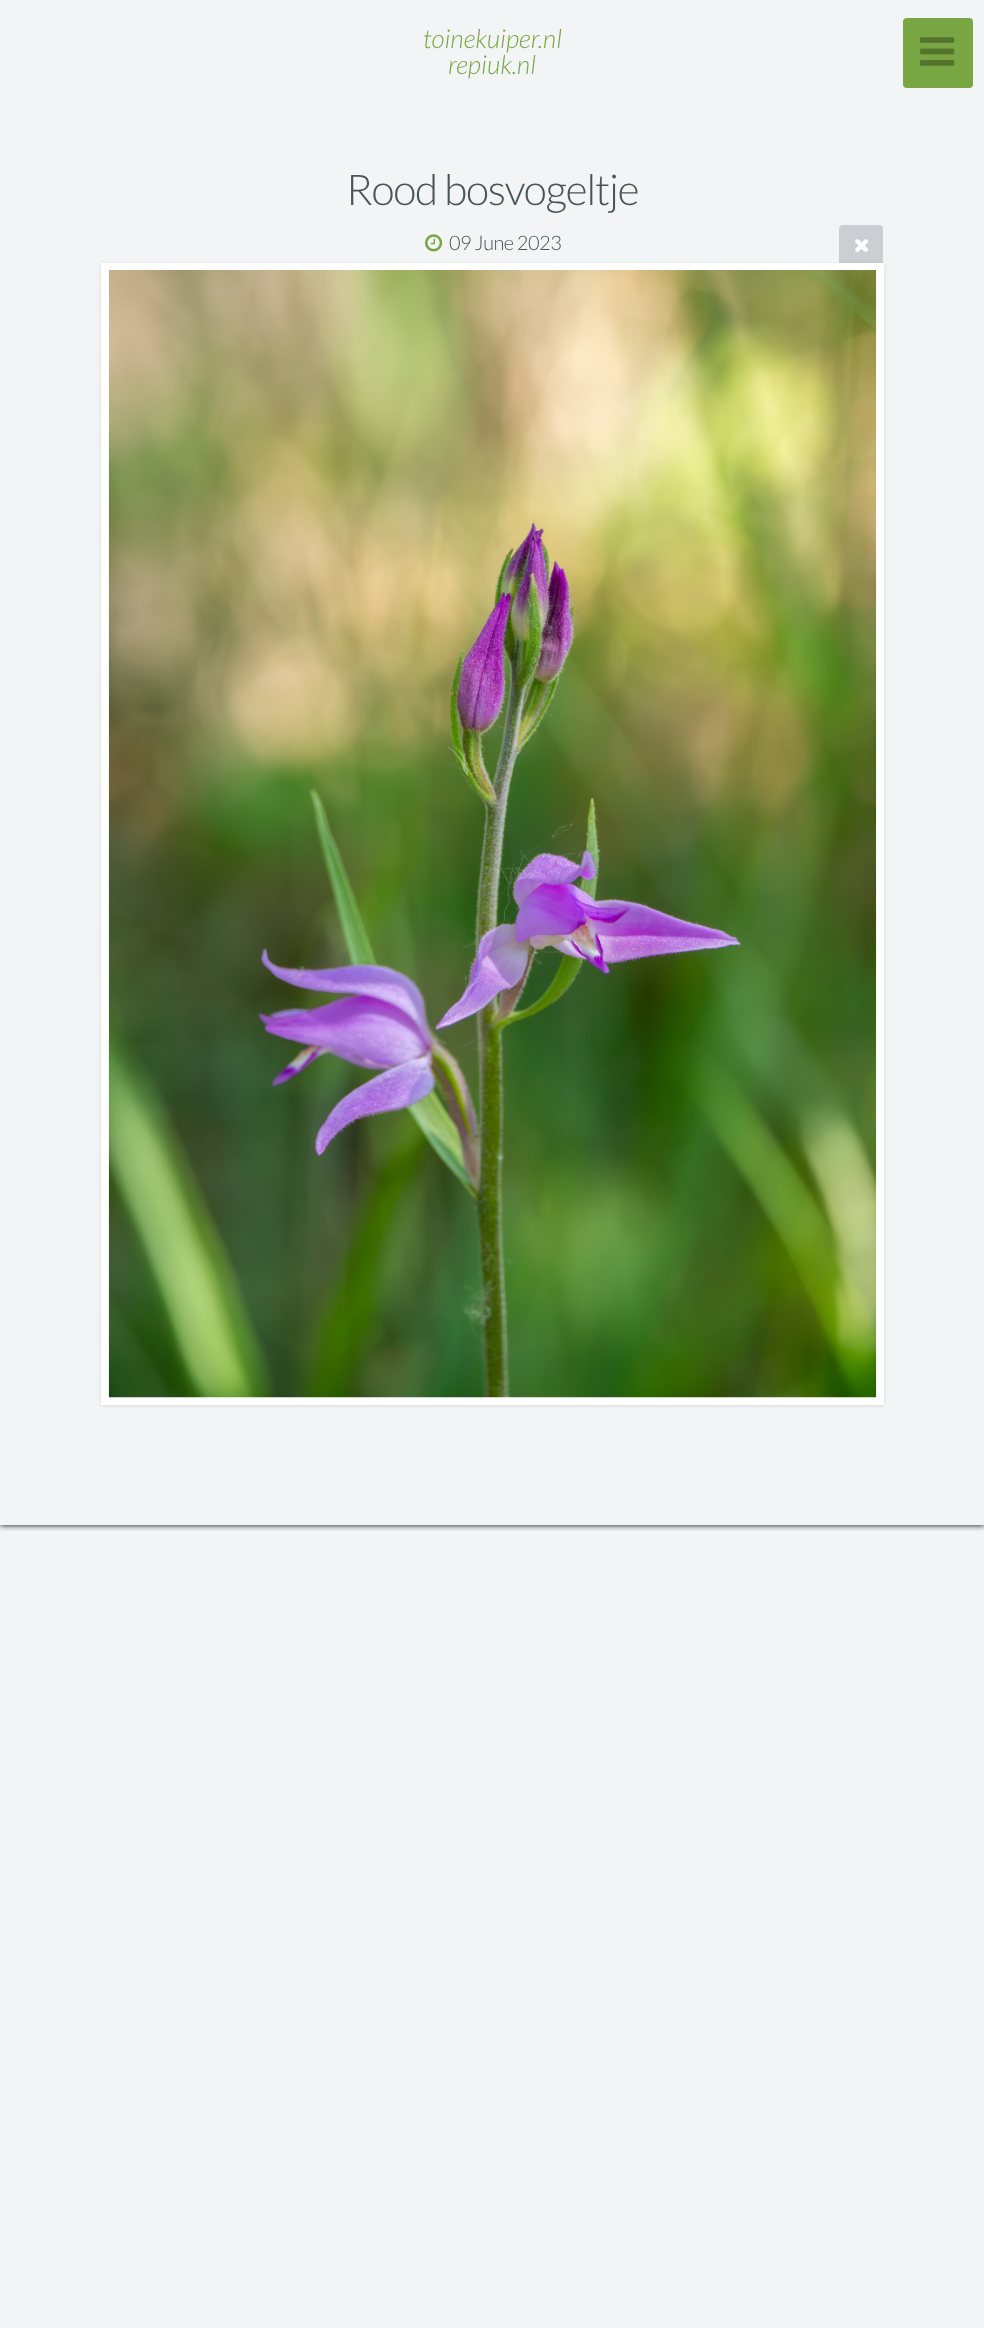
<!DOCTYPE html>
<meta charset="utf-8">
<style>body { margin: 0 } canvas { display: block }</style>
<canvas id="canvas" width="984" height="2328"></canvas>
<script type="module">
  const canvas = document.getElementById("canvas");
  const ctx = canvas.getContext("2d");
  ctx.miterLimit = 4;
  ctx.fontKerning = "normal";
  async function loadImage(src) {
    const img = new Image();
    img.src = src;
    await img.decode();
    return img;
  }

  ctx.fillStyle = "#f3f4f5";
  ctx.fillRect(0, 0, 984, 2328);
  ctx.save();
  ctx.beginPath();
  ctx.rect(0, 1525, 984, 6);
  ctx.clip();
  ctx.fillStyle = "#000000";
  ctx.filter = "blur(3px)";
  ctx.beginPath();
  ctx.rect(0, 0, 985, 1525);
  ctx.fill();
  ctx.filter = "none";
  ctx.restore();
  ctx.font = "italic 300 26px Lato";
  ctx.fillStyle = "#78a642";
  ctx.fillText("toinekuiper.nl", 423, 48);
  ctx.fillText("repiuk.nl", 448, 74);
  ctx.letterSpacing = "-1.25px";
  ctx.font = "300 42.5px Lato";
  ctx.fillStyle = "#48545a";
  ctx.fillText("Rood bosvogeltje", 346, 205);
  ctx.drawImage(await loadImage("img1.png"), 425, 234, 18, 18);
  ctx.letterSpacing = "-0.5px";
  ctx.font = "300 20px Lato";
  ctx.fillText("09 June 2023", 449, 250);
  ctx.fillStyle = "#cbcfd4";
  ctx.beginPath();
  ctx.roundRect(839, 225, 44, 38, [4, 4, 0, 0]);
  ctx.fill();
  ctx.drawImage(await loadImage("img2.png"), 855, 239, 14, 14);
  ctx.fillStyle = "rgba(0, 0, 0, 0.1)";
  ctx.filter = "blur(2px)";
  ctx.beginPath();
  ctx.rect(101, 264, 783, 1142);
  ctx.fill();
  ctx.filter = "none";
  ctx.fillStyle = "#ffffff";
  ctx.fillRect(101, 263, 783, 1142);
  ctx.drawImage(await loadImage("img3.png"), 108, 270, 769, 1128);
  ctx.fillStyle = "#78a642";
  ctx.beginPath();
  ctx.roundRect(903, 18, 70, 70, 4);
  ctx.fill();
  ctx.drawImage(await loadImage("img4.png"), 920, 37, 35, 29);
</script>
